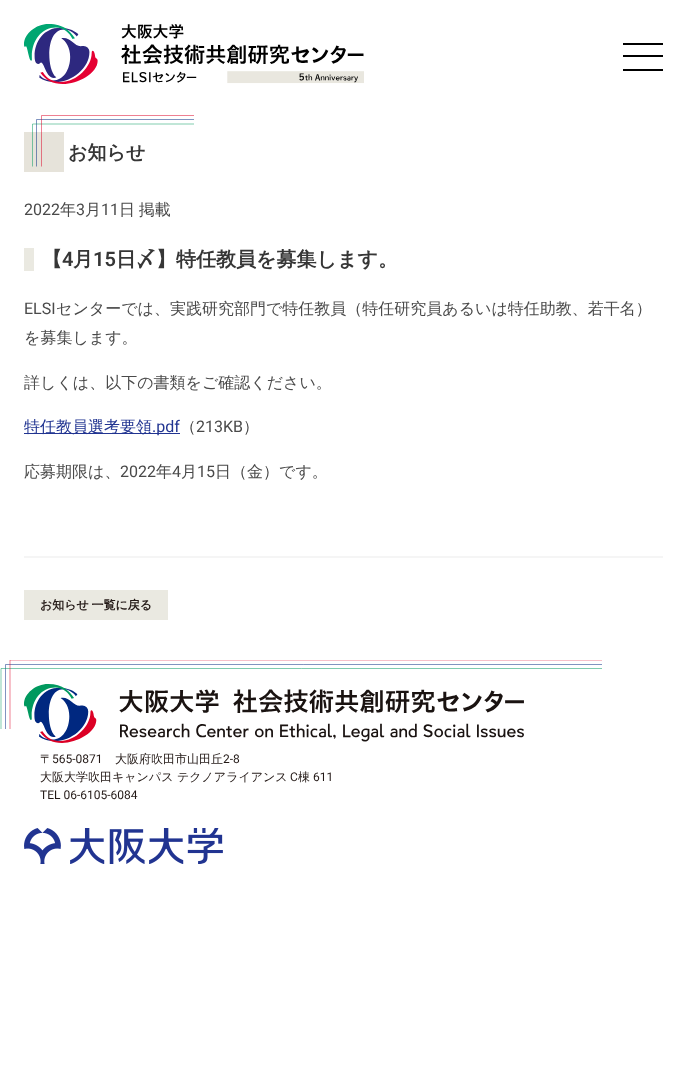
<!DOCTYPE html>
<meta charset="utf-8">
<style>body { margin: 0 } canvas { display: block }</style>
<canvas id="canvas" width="687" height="1090"></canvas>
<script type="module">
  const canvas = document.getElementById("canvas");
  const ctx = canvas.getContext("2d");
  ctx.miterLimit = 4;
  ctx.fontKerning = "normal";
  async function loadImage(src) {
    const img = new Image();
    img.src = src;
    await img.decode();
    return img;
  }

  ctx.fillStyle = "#ffffff";
  ctx.fillRect(0, 0, 687, 1090);
  ctx.drawImage(await loadImage("img1.png"), 24, 24, 340, 60);
  ctx.fillStyle = "#000000";
  ctx.fillRect(623, 43, 40, 2);
  ctx.fillRect(623, 55, 40, 2);
  ctx.fillRect(623, 69, 40, 2);
  ctx.fillStyle = "#e6e3da";
  ctx.fillRect(24, 132, 40, 40);
  ctx.beginPath();
  ctx.moveTo(36.5, 166.5);
  ctx.lineTo(36.5, 119.5);
  ctx.lineTo(194, 119.5);
  ctx.strokeStyle = "#002880";
  ctx.lineWidth = 0.5;
  ctx.stroke();
  ctx.beginPath();
  ctx.moveTo(194, 124);
  ctx.lineTo(32.5, 124);
  ctx.lineTo(32.5, 166.5);
  ctx.strokeStyle = "#00995e";
  ctx.stroke();
  ctx.beginPath();
  ctx.moveTo(194, 115.5);
  ctx.lineTo(41.5, 115.5);
  ctx.lineTo(41.5, 166.5);
  ctx.strokeStyle = "#dc0025";
  ctx.stroke();
  ctx.font = "bold 19px WenQuanYi Zen Hei";
  ctx.fillStyle = "#363636";
  ctx.fillText("お知らせ", 68, 159);
  ctx.font = "16px Roboto";
  ctx.fillStyle = "#4a4a4a";
  ctx.fillText("2022", 24, 215);
  ctx.font = "500 16px WenQuanYi Zen Hei";
  ctx.fillText("年", 60, 215);
  ctx.font = "16px Roboto";
  ctx.fillText("3", 76, 215);
  ctx.font = "500 16px WenQuanYi Zen Hei";
  ctx.fillText("月", 85, 215);
  ctx.font = "16px Roboto";
  ctx.fillText("11", 101, 215);
  ctx.wordSpacing = "-1px";
  ctx.font = "500 16px WenQuanYi Zen Hei";
  ctx.fillText("日 掲載", 119, 215);
  ctx.fillStyle = "#eae9e1";
  ctx.fillRect(24, 248, 10, 23);
  ctx.wordSpacing = "0px";
  ctx.font = "bold 20px WenQuanYi Zen Hei";
  ctx.fillStyle = "#363636";
  ctx.fillText("【", 42, 266);
  ctx.font = "600 20px Roboto";
  ctx.fillText("4", 62, 266);
  ctx.font = "bold 20px WenQuanYi Zen Hei";
  ctx.fillText("月", 73, 266);
  ctx.font = "600 20px Roboto";
  ctx.fillText("15", 93, 266);
  ctx.font = "bold 20px WenQuanYi Zen Hei";
  ctx.fillText("日〆】特任教員を募集します。", 116, 266);
  ctx.font = "16px Roboto";
  ctx.fillStyle = "#4a4a4a";
  ctx.fillText("ELSI", 24, 314);
  ctx.font = "500 16px WenQuanYi Zen Hei";
  ctx.fillText("センターでは、実践研究部門で特任教員（特任研究員あるいは特任助教、若干名）", 56, 314);
  ctx.fillText("を募集します。", 24, 343);
  ctx.fillText("詳しくは、以下の書類をご確認ください。", 24, 388);
  ctx.fillStyle = "#213491";
  ctx.fillRect(24, 433, 156, 1);
  ctx.fillText("特任教員選考要領", 24, 432);
  ctx.font = "16px Roboto";
  ctx.fillText(".pdf", 152, 432);
  ctx.font = "500 16px WenQuanYi Zen Hei";
  ctx.fillStyle = "#4a4a4a";
  ctx.fillText("（", 180, 432);
  ctx.font = "16px Roboto";
  ctx.fillText("213KB", 196, 432);
  ctx.font = "500 16px WenQuanYi Zen Hei";
  ctx.fillText("）", 243, 432);
  ctx.fillText("応募期限は、", 24, 477);
  ctx.font = "16px Roboto";
  ctx.fillText("2022", 120, 477);
  ctx.font = "500 16px WenQuanYi Zen Hei";
  ctx.fillText("年", 156, 477);
  ctx.font = "16px Roboto";
  ctx.fillText("4", 172, 477);
  ctx.font = "500 16px WenQuanYi Zen Hei";
  ctx.fillText("月", 181, 477);
  ctx.font = "16px Roboto";
  ctx.fillText("15", 197, 477);
  ctx.font = "500 16px WenQuanYi Zen Hei";
  ctx.fillText("日（金）です。", 215, 477);
  ctx.fillStyle = "#f5f5f5";
  ctx.fillRect(24, 556, 639, 2);
  ctx.fillStyle = "#eae9e1";
  ctx.fillRect(24, 590, 144, 30);
  ctx.wordSpacing = "-1px";
  ctx.font = "bold 12px WenQuanYi Zen Hei";
  ctx.fillStyle = "#221815";
  ctx.fillText("お知らせ 一覧に戻る", 40, 609);
  ctx.beginPath();
  ctx.moveTo(5.5, 729);
  ctx.lineTo(5.5, 664.5);
  ctx.lineTo(602, 664.5);
  ctx.strokeStyle = "#002880";
  ctx.stroke();
  ctx.beginPath();
  ctx.moveTo(602, 668.5);
  ctx.lineTo(1, 668.5);
  ctx.lineTo(1, 729);
  ctx.strokeStyle = "#00995e";
  ctx.stroke();
  ctx.save();
  ctx.beginPath();
  ctx.rect(0, 660, 603, 69);
  ctx.clip();
  ctx.beginPath();
  ctx.moveTo(602, 660);
  ctx.lineTo(10, 660);
  ctx.lineTo(10, 729);
  ctx.strokeStyle = "#dc0025";
  ctx.stroke();
  ctx.restore();
  ctx.drawImage(await loadImage("img2.png"), 24, 684, 500, 59);
  ctx.wordSpacing = "0px";
  ctx.font = "500 12px WenQuanYi Zen Hei";
  ctx.fillText("〒", 40, 763);
  ctx.font = "12px Roboto";
  ctx.fillText("565-0871", 52, 763);
  ctx.font = "500 12px WenQuanYi Zen Hei";
  ctx.fillText("大阪府吹田市山田丘", 115, 763);
  ctx.font = "12px Roboto";
  ctx.fillText("2-8", 223, 763);
  ctx.font = "500 12px WenQuanYi Zen Hei";
  ctx.fillText("大阪大学吹田キャンパス テクノアライアンス", 40, 781);
  ctx.font = "12px Roboto";
  ctx.fillText("C", 290, 781);
  ctx.font = "500 12px WenQuanYi Zen Hei";
  ctx.fillText("棟", 298, 781);
  ctx.font = "12px Roboto";
  ctx.fillText("611", 313, 781);
  ctx.fillText("TEL 06-6105-6084", 40, 799);
  ctx.drawImage(await loadImage("img3.png"), 24, 828, 199, 36);
</script>
